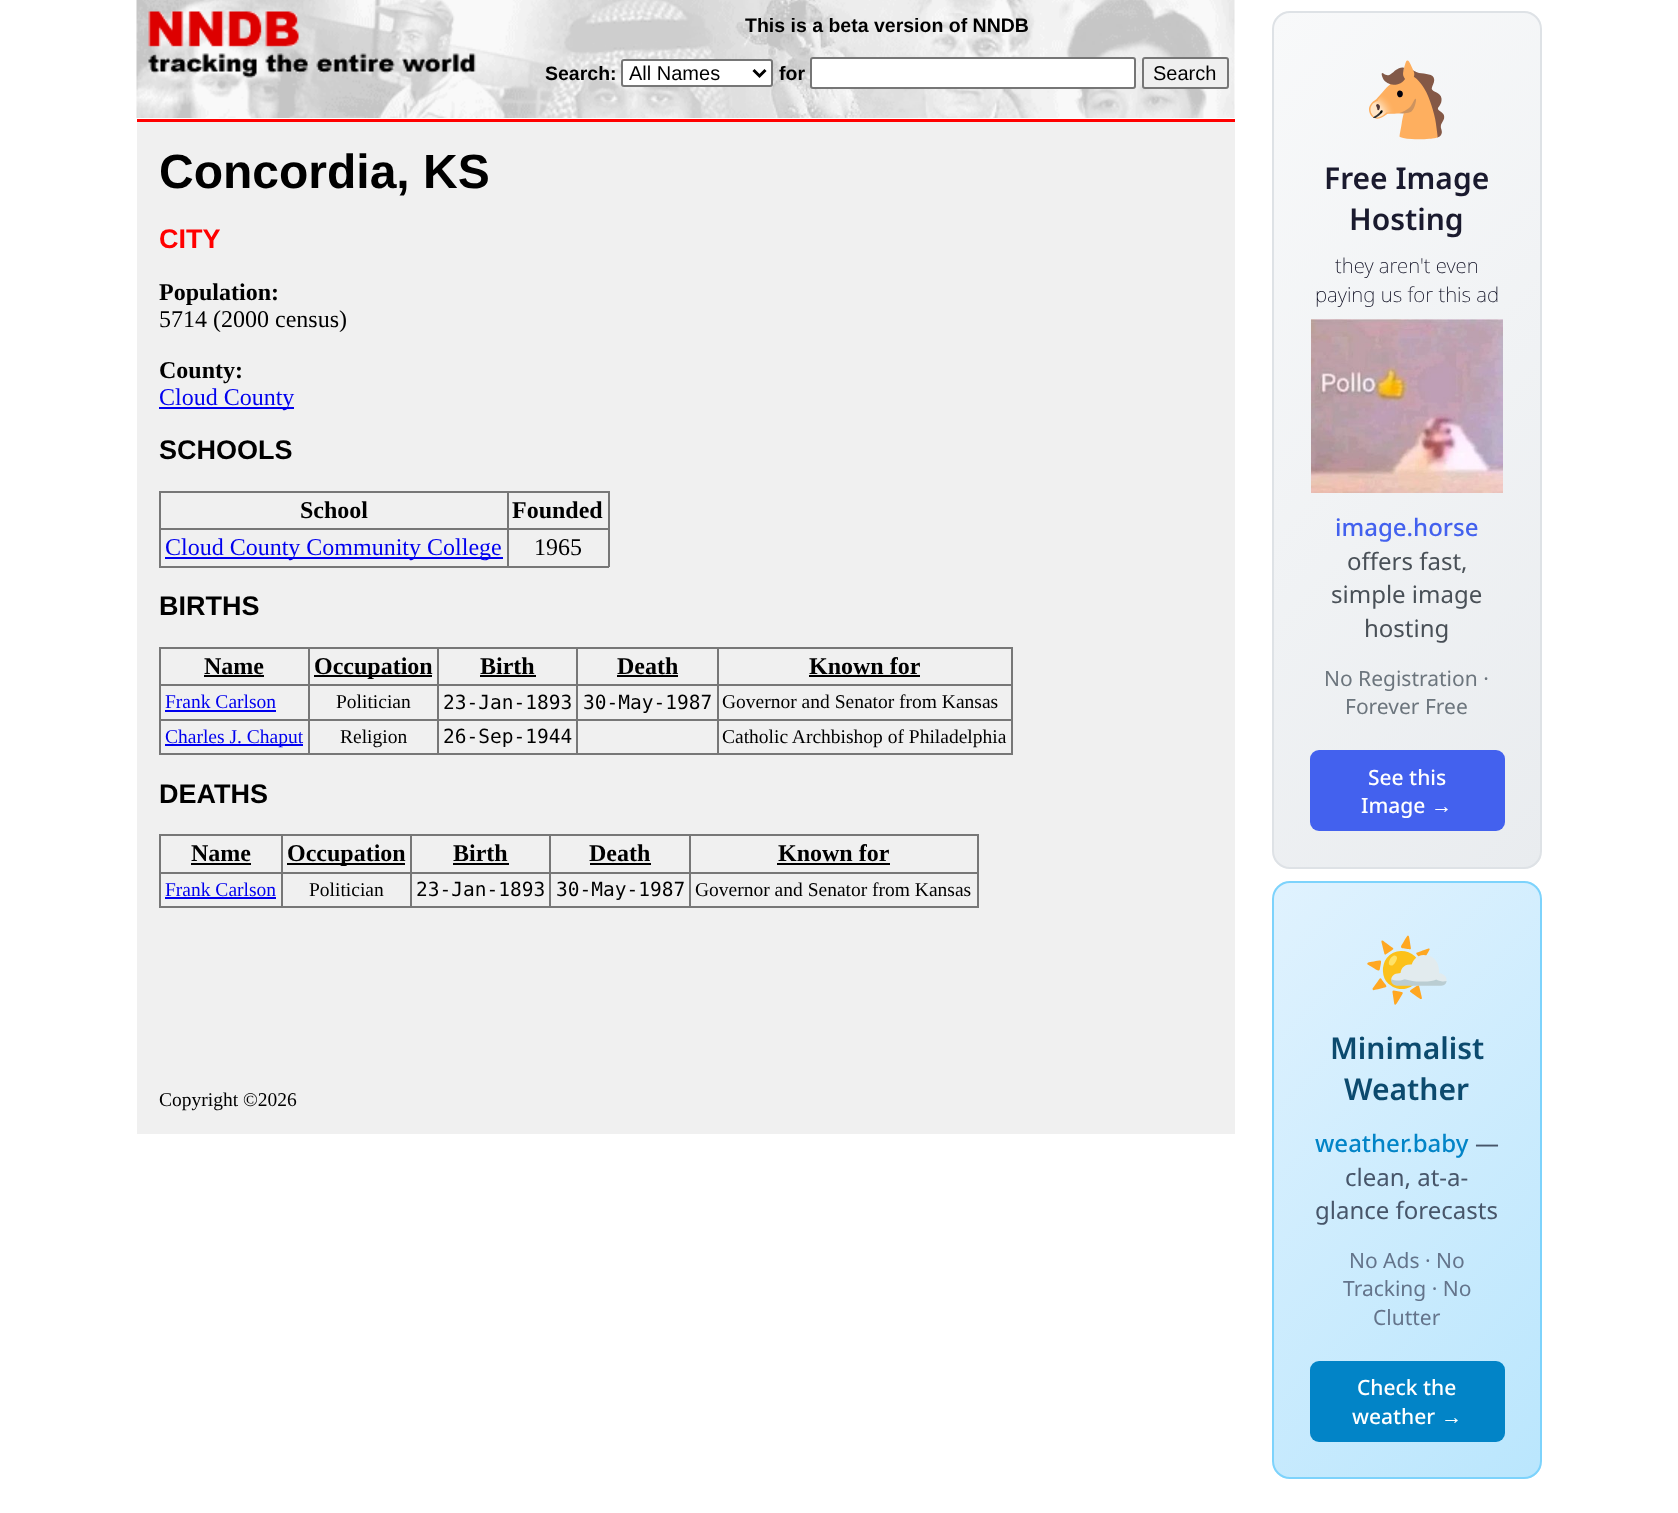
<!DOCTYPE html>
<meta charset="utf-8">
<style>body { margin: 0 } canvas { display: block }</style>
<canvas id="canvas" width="1678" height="1513"></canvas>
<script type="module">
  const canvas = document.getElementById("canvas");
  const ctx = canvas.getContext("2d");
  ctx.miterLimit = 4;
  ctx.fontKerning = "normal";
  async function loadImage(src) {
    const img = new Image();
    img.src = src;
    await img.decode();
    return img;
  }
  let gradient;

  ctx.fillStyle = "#ffffff";
  ctx.fillRect(0, 0, 1678, 1513);
  ctx.drawImage(await loadImage("img1.png"), 136, 0, 1099, 118);
  ctx.drawImage(await loadImage("img2.png"), 148, 11, 328, 67);
  ctx.font = "bold 19.5px Liberation Sans";
  ctx.fillStyle = "#000000";
  ctx.fillText("This is a beta version of NNDB", 745, 32);
  ctx.fillText("Search:", 545, 80);
  ctx.fillStyle = "#ffffff";
  ctx.beginPath();
  ctx.roundRect(622, 60, 150, 26, 2);
  ctx.fill();
  ctx.strokeStyle = "#767676";
  ctx.lineWidth = 2;
  ctx.stroke();
  ctx.beginPath();
  ctx.moveTo(753.5, 70);
  ctx.lineTo(759.5, 76);
  ctx.lineTo(765.5, 70);
  ctx.strokeStyle = "#000000";
  ctx.lineWidth = 3;
  ctx.stroke();
  ctx.font = "20px Liberation Sans";
  ctx.fillStyle = "#000000";
  ctx.fillText("All Names", 629, 80);
  ctx.font = "bold 19.5px Liberation Sans";
  ctx.fillText("for", 779, 80);
  ctx.fillStyle = "#ffffff";
  ctx.beginPath();
  ctx.roundRect(811, 58, 324, 30, 2);
  ctx.fill();
  ctx.strokeStyle = "#767676";
  ctx.lineWidth = 2;
  ctx.stroke();
  ctx.fillStyle = "#efefef";
  ctx.beginPath();
  ctx.roundRect(1143, 58, 85, 30, 2);
  ctx.fill();
  ctx.stroke();
  ctx.font = "20px Liberation Sans";
  ctx.fillStyle = "#000000";
  ctx.fillText("Search", 1153, 80);
  ctx.fillStyle = "#ff0000";
  ctx.fillRect(137, 119, 1098, 3);
  ctx.fillStyle = "#f0f0f0";
  ctx.fillRect(137, 122, 1098, 1012);
  ctx.font = "bold 48px Liberation Sans";
  ctx.fillStyle = "#000000";
  ctx.fillText("Concordia, KS", 159, 188);
  ctx.font = "bold 27px Liberation Sans";
  ctx.fillStyle = "#ff0000";
  ctx.fillText("CITY", 159, 248);
  ctx.font = "bold 24px Liberation Serif";
  ctx.fillStyle = "#000000";
  ctx.fillText("Population:", 159, 300);
  ctx.font = "24px Liberation Serif";
  ctx.fillText("5714 (2000 census)", 159, 327);
  ctx.font = "bold 24px Liberation Serif";
  ctx.fillText("County:", 159, 378);
  ctx.fillStyle = "#0000ee";
  ctx.fillRect(159, 407, 135, 2);
  ctx.font = "24px Liberation Serif";
  ctx.fillText("Cloud County", 159, 405);
  ctx.font = "bold 27px Liberation Sans";
  ctx.fillStyle = "#000000";
  ctx.fillText("SCHOOLS", 159, 459);
  ctx.fillStyle = "#777777";
  ctx.fillRect(159, 491, 450, 2);
  ctx.fillRect(608, 491, 2, 76);
  ctx.fillRect(159, 566, 450, 2);
  ctx.fillRect(159, 491, 2, 76);
  ctx.font = "bold 24px Liberation Serif";
  ctx.fillStyle = "#000000";
  ctx.fillText("School", 300, 518);
  ctx.fillStyle = "#777777";
  ctx.fillRect(507, 528, 102, 2);
  ctx.fillRect(507, 528, 2, 39);
  ctx.fillRect(159, 528, 350, 2);
  ctx.fillRect(507, 491, 2, 39);
  ctx.fillStyle = "#000000";
  ctx.fillText("Founded", 512, 518);
  ctx.fillStyle = "#0000ee";
  ctx.fillRect(165, 557, 338, 2);
  ctx.font = "24px Liberation Serif";
  ctx.fillText("Cloud County Community College", 165, 555);
  ctx.fillStyle = "#000000";
  ctx.fillText("1965", 534, 555);
  ctx.font = "bold 27px Liberation Sans";
  ctx.fillText("BIRTHS", 159, 615);
  ctx.fillStyle = "#777777";
  ctx.fillRect(159, 647, 854, 2);
  ctx.fillRect(1011, 647, 2, 108);
  ctx.fillRect(159, 753, 854, 2);
  ctx.fillRect(159, 647, 2, 108);
  ctx.font = "bold 24px Liberation Serif";
  ctx.fillStyle = "#000000";
  ctx.fillText("Name", 204, 674);
  ctx.fillRect(204, 675, 60, 2);
  ctx.fillStyle = "#777777";
  ctx.fillRect(717, 684, 296, 2);
  ctx.fillRect(717, 719, 296, 2);
  ctx.fillRect(717, 719, 2, 36);
  ctx.fillRect(576, 719, 143, 2);
  ctx.fillRect(717, 684, 2, 36);
  ctx.fillRect(576, 684, 143, 2);
  ctx.fillRect(576, 719, 2, 36);
  ctx.fillRect(437, 719, 141, 2);
  ctx.fillRect(576, 684, 2, 36);
  ctx.fillRect(437, 684, 141, 2);
  ctx.fillRect(437, 719, 2, 36);
  ctx.fillRect(308, 719, 130, 2);
  ctx.fillRect(437, 684, 2, 36);
  ctx.fillRect(308, 684, 130, 2);
  ctx.fillRect(308, 719, 2, 36);
  ctx.fillRect(159, 719, 150, 2);
  ctx.fillRect(308, 684, 2, 36);
  ctx.fillRect(159, 684, 150, 2);
  ctx.fillRect(308, 647, 2, 39);
  ctx.fillStyle = "#000000";
  ctx.fillRect(314, 675, 118, 2);
  ctx.fillText("Occupation", 314, 674);
  ctx.fillStyle = "#777777";
  ctx.fillRect(437, 647, 2, 39);
  ctx.fillStyle = "#000000";
  ctx.fillText("Birth", 480, 674);
  ctx.fillRect(480, 675, 56, 2);
  ctx.fillStyle = "#777777";
  ctx.fillRect(576, 647, 2, 39);
  ctx.fillStyle = "#000000";
  ctx.fillText("Death", 617, 674);
  ctx.fillRect(617, 675, 61, 2);
  ctx.fillStyle = "#777777";
  ctx.fillRect(717, 647, 2, 39);
  ctx.fillStyle = "#000000";
  ctx.fillText("Known for", 809, 674);
  ctx.fillRect(809, 675, 111, 2);
  ctx.font = "19.5px Liberation Serif";
  ctx.fillStyle = "#0000ee";
  ctx.fillText("Frank Carlson", 165, 708);
  ctx.fillRect(165, 710, 111, 2);
  ctx.fillStyle = "#000000";
  ctx.fillText("Politician", 336, 708);
  ctx.font = "19.5px DejaVu Sans Mono";
  ctx.fillText("23-Jan-1893", 443, 709);
  ctx.fillText("30-May-1987", 583, 709);
  ctx.font = "19.5px Liberation Serif";
  ctx.fillText("Governor and Senator from Kansas", 722, 708);
  ctx.fillStyle = "#0000ee";
  ctx.fillRect(165, 744, 138, 2);
  ctx.fillText("Charles J. Chaput", 165, 743);
  ctx.fillStyle = "#000000";
  ctx.fillText("Religion", 340, 743);
  ctx.font = "19.5px DejaVu Sans Mono";
  ctx.fillText("26-Sep-1944", 443, 743);
  ctx.font = "19.5px Liberation Serif";
  ctx.fillText("Catholic Archbishop of Philadelphia", 722, 743);
  ctx.font = "bold 27px Liberation Sans";
  ctx.fillText("DEATHS", 159, 803);
  ctx.fillStyle = "#777777";
  ctx.fillRect(159, 834, 819, 2);
  ctx.fillRect(977, 834, 2, 74);
  ctx.fillRect(159, 906, 819, 2);
  ctx.fillRect(159, 834, 2, 74);
  ctx.font = "bold 24px Liberation Serif";
  ctx.fillStyle = "#000000";
  ctx.fillText("Name", 191, 861);
  ctx.fillRect(191, 863, 60, 2);
  ctx.fillStyle = "#777777";
  ctx.fillRect(689, 872, 289, 2);
  ctx.fillRect(689, 872, 2, 36);
  ctx.fillRect(549, 872, 141, 2);
  ctx.fillRect(549, 872, 2, 36);
  ctx.fillRect(410, 872, 141, 2);
  ctx.fillRect(410, 872, 2, 36);
  ctx.fillRect(281, 872, 130, 2);
  ctx.fillRect(281, 872, 2, 36);
  ctx.fillRect(159, 872, 123, 2);
  ctx.fillRect(281, 834, 2, 39);
  ctx.fillStyle = "#000000";
  ctx.fillRect(287, 863, 118, 2);
  ctx.fillText("Occupation", 287, 861);
  ctx.fillStyle = "#777777";
  ctx.fillRect(410, 834, 2, 39);
  ctx.fillStyle = "#000000";
  ctx.fillText("Birth", 453, 861);
  ctx.fillRect(453, 863, 56, 2);
  ctx.fillStyle = "#777777";
  ctx.fillRect(549, 834, 2, 39);
  ctx.fillStyle = "#000000";
  ctx.fillText("Death", 589, 861);
  ctx.fillRect(590, 863, 61, 2);
  ctx.fillStyle = "#777777";
  ctx.fillRect(689, 834, 2, 39);
  ctx.fillStyle = "#000000";
  ctx.fillText("Known for", 778, 861);
  ctx.fillRect(777, 863, 113, 2);
  ctx.font = "19.5px Liberation Serif";
  ctx.fillStyle = "#0000ee";
  ctx.fillText("Frank Carlson", 165, 896);
  ctx.fillRect(165, 897, 111, 2);
  ctx.fillStyle = "#000000";
  ctx.fillText("Politician", 309, 896);
  ctx.font = "19.5px DejaVu Sans Mono";
  ctx.fillText("23-Jan-1893", 416, 896);
  ctx.fillText("30-May-1987", 556, 896);
  ctx.font = "19.5px Liberation Serif";
  ctx.fillText("Governor and Senator from Kansas", 695, 896);
  ctx.fillText("Copyright ©2026", 159, 1106);
  ctx.save();
  ctx.beginPath();
  ctx.roundRect(1272, 11, 270, 858, 18);
  ctx.clip();
  gradient = ctx.createLinearGradient(1127, 159, 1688, 720);
  gradient.addColorStop(0, "#f8f9fa");
  gradient.addColorStop(1, "#e9ecef");
  ctx.fillStyle = gradient;
  ctx.fillRect(1274, 12, 267, 855);
  ctx.restore();
  ctx.beginPath();
  ctx.roundRect(1273, 12, 268, 856, 17);
  ctx.strokeStyle = "#dee2e6";
  ctx.stroke();
  ctx.font = "72px Noto Color Emoji";
  ctx.fillStyle = "#0000ee";
  ctx.fillText("🐴", 1362, 125);
  ctx.font = "600 30px Noto Sans";
  ctx.fillStyle = "#1a1a2e";
  ctx.fillText("Free Image", 1324, 189);
  ctx.fillText("Hosting", 1349, 230);
  ctx.font = "200 20.5px Noto Sans";
  ctx.fillStyle = "#0a0a1e";
  ctx.fillText("they aren't even", 1335, 273);
  ctx.fillText("paying us for this ad", 1315, 302);
  ctx.drawImage(await loadImage("img3.png"), 1311, 319, 192, 174);
  ctx.font = "500 24px Noto Sans";
  ctx.fillStyle = "#4361ee";
  ctx.fillText("image.horse", 1335, 536);
  ctx.font = "24px Noto Sans";
  ctx.fillStyle = "#495057";
  ctx.fillText("offers fast,", 1347, 570);
  ctx.fillText("simple image", 1331, 603);
  ctx.fillText("hosting", 1364, 637);
  ctx.font = "21px Noto Sans";
  ctx.fillStyle = "#6c757d";
  ctx.fillText("No Registration ·", 1324, 686);
  ctx.fillText("Forever Free", 1345, 714);
  ctx.fillStyle = "#4361ee";
  ctx.beginPath();
  ctx.roundRect(1310, 750, 195, 81, 9);
  ctx.fill();
  ctx.font = "500 21px Noto Sans";
  ctx.fillStyle = "#ffffff";
  ctx.fillText("See this", 1368, 785);
  ctx.fillText("Image", 1361, 813);
  ctx.font = "21px Liberation Sans";
  ctx.fillText("→", 1431, 813);
  ctx.save();
  ctx.beginPath();
  ctx.roundRect(1272, 881, 270, 598, 18);
  ctx.clip();
  gradient = ctx.createLinearGradient(1191, 964, 1623, 1395);
  gradient.addColorStop(0, "#e0f2fe");
  gradient.addColorStop(1, "#bae6fd");
  ctx.fillStyle = gradient;
  ctx.fillRect(1274, 882, 267, 596);
  ctx.restore();
  ctx.beginPath();
  ctx.roundRect(1273, 882, 268, 596, 17);
  ctx.strokeStyle = "#7dd3fc";
  ctx.stroke();
  ctx.font = "72px Noto Color Emoji";
  ctx.fillStyle = "#0000ee";
  ctx.fillText("🌤️", 1362, 995);
  ctx.font = "600 30px Noto Sans";
  ctx.fillStyle = "#0c4a6e";
  ctx.fillText("Minimalist", 1330, 1059);
  ctx.fillText("Weather", 1344, 1100);
  ctx.font = "500 24px Noto Sans";
  ctx.fillStyle = "#0284c7";
  ctx.fillText("weather.baby", 1315, 1152);
  ctx.font = "24px Noto Sans";
  ctx.fillStyle = "#475569";
  ctx.fillText("—", 1475, 1152);
  ctx.fillText("clean, at-a-", 1345, 1186);
  ctx.fillText("glance forecasts", 1315, 1219);
  ctx.font = "21px Noto Sans";
  ctx.fillStyle = "#64748b";
  ctx.fillText("No Ads · No", 1349, 1268);
  ctx.fillText("Tracking · No", 1343, 1296);
  ctx.fillText("Clutter", 1373, 1325);
  ctx.fillStyle = "#0284c7";
  ctx.beginPath();
  ctx.roundRect(1310, 1361, 195, 81, 9);
  ctx.fill();
  ctx.font = "500 21px Noto Sans";
  ctx.fillStyle = "#ffffff";
  ctx.fillText("Check the", 1357, 1395);
  ctx.fillText("weather", 1352, 1424);
  ctx.font = "21px Liberation Sans";
  ctx.fillText("→", 1441, 1424);
</script>
